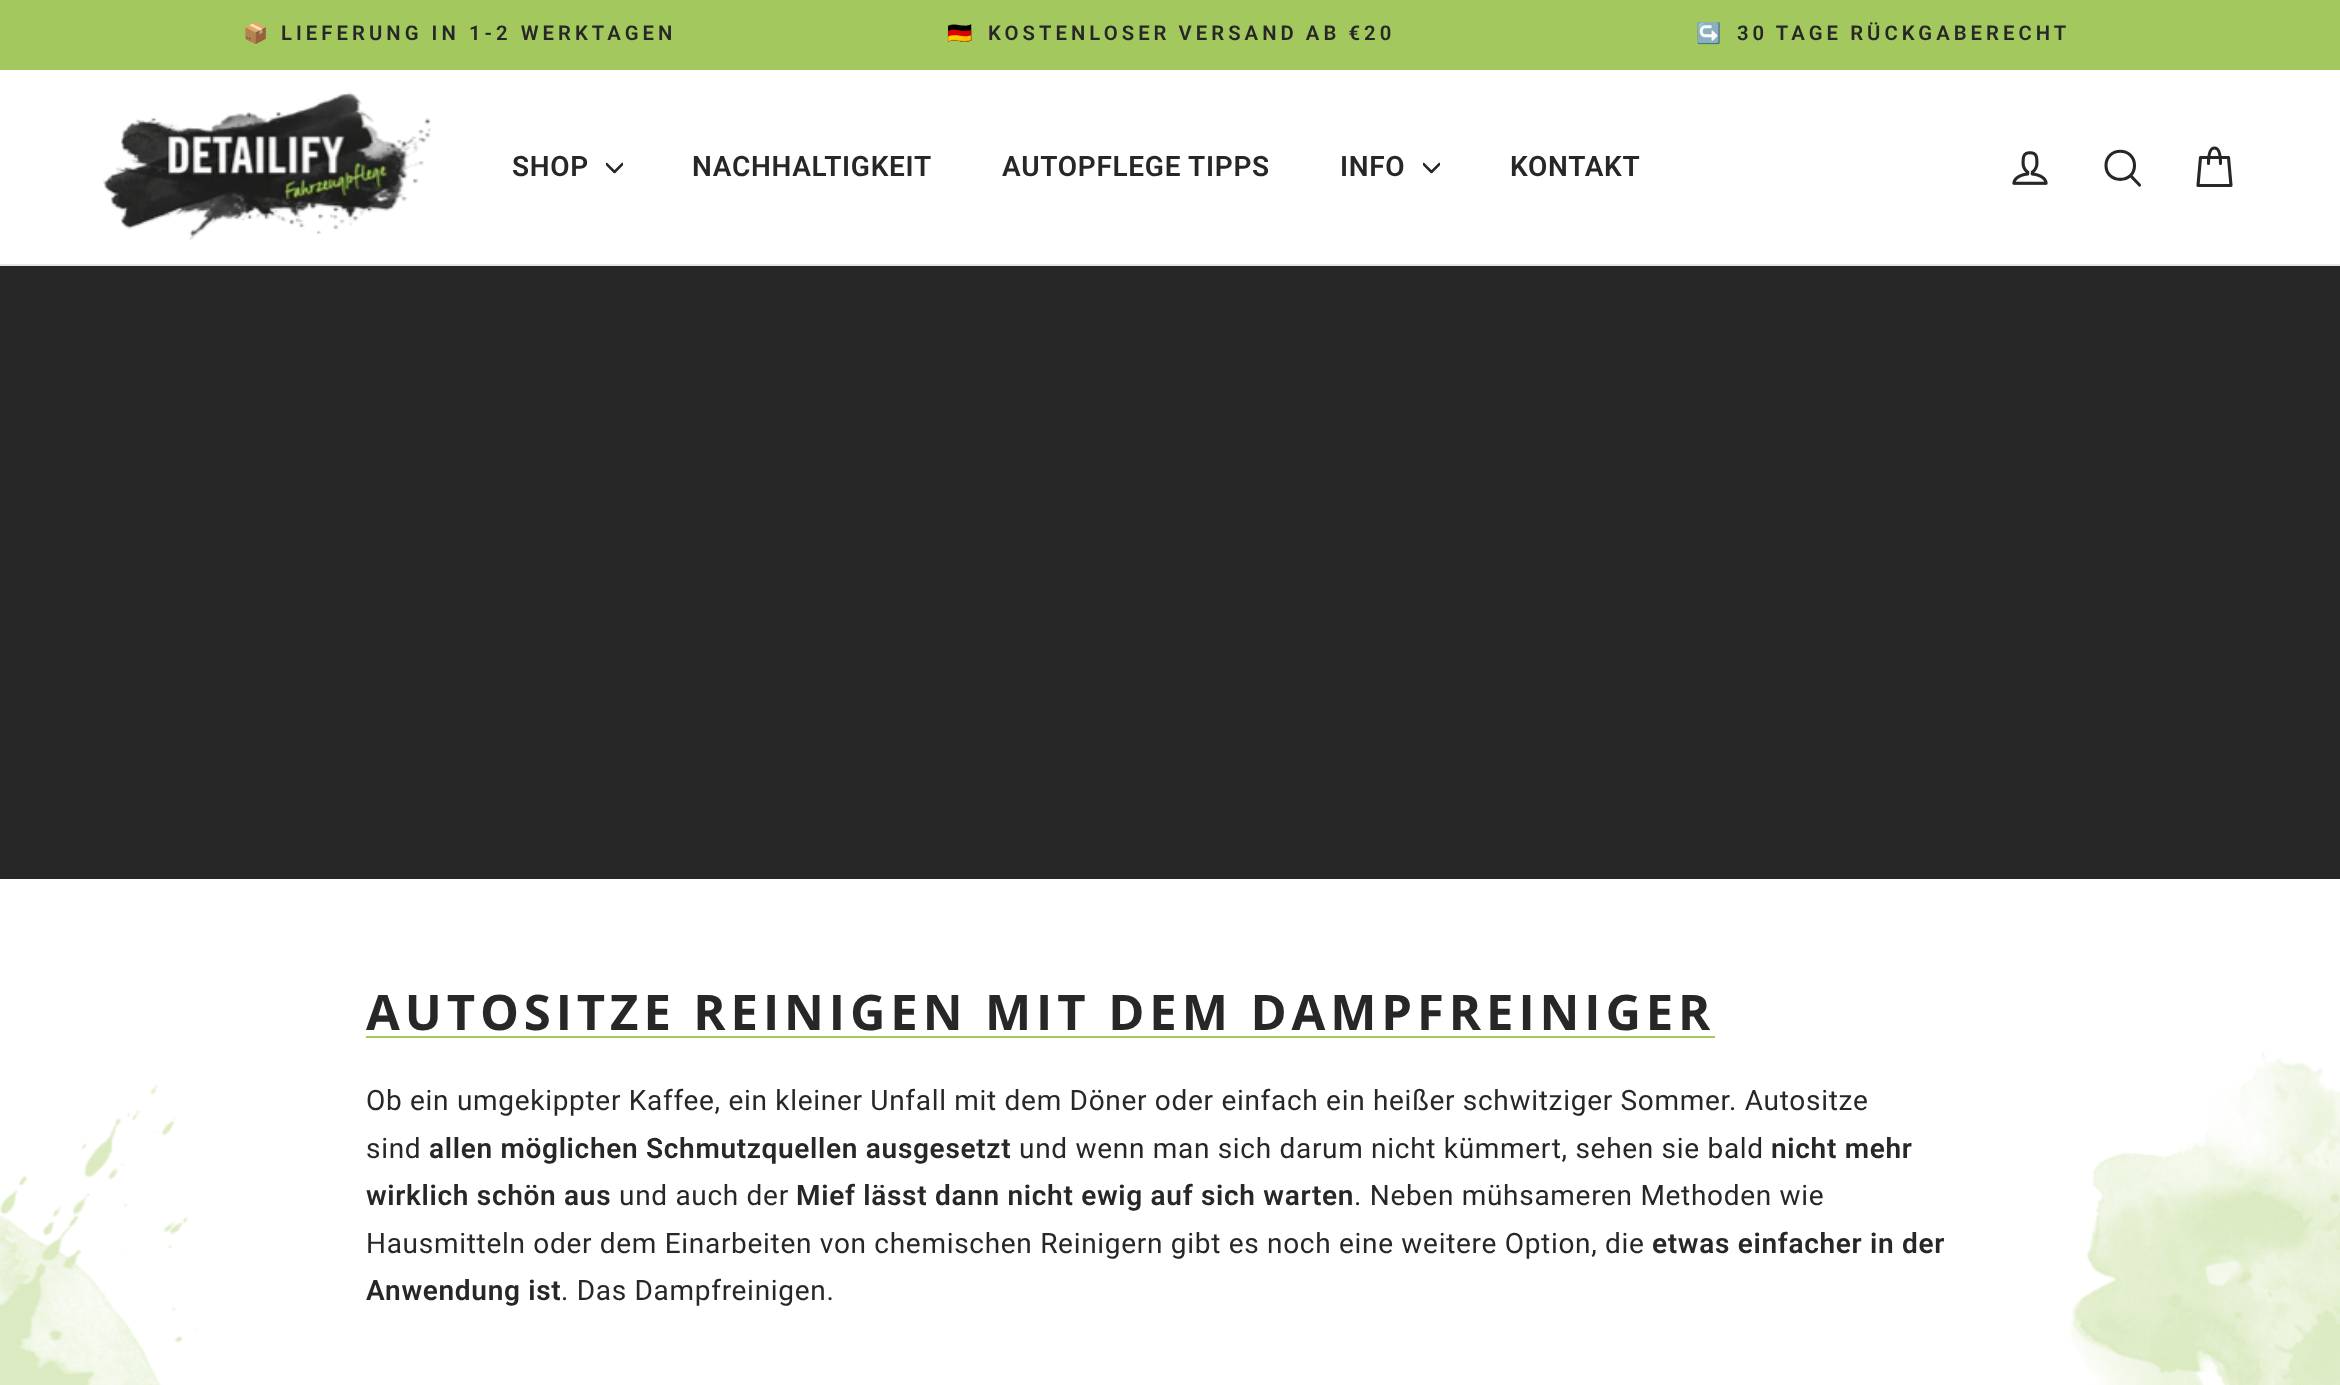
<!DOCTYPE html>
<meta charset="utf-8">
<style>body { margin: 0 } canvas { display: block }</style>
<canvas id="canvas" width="2340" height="1385"></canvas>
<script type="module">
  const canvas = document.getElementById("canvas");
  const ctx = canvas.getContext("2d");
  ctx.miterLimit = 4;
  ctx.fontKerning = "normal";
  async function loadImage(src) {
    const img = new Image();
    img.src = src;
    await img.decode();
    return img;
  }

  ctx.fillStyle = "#ffffff";
  ctx.fillRect(0, 0, 2340, 1385);
  ctx.drawImage(await loadImage("img1.png"), 0, 1051, 2340, 334);
  ctx.fillStyle = "#a3c95e";
  ctx.fillRect(0, 0, 2340, 70);
  ctx.letterSpacing = "4.05px";
  ctx.font = "bold 20.25px Noto Color Emoji";
  ctx.fillStyle = "#282727";
  ctx.fillText("📦", 243, 40);
  ctx.font = "600 20.25px Roboto";
  ctx.fillText("LIEFERUNG IN 1-2 WERKTAGEN", 281, 40);
  ctx.font = "bold 20.25px Noto Color Emoji";
  ctx.fillText("🇩🇪", 947, 40);
  ctx.wordSpacing = "-1px";
  ctx.font = "600 20.25px Roboto";
  ctx.fillText("KOSTENLOSER VERSAND AB €20", 988, 40);
  ctx.wordSpacing = "0px";
  ctx.font = "bold 20.25px Noto Color Emoji";
  ctx.fillText("↪️", 1696, 40);
  ctx.wordSpacing = "-1px";
  ctx.font = "600 20.25px Roboto";
  ctx.fillText("30 TAGE RÜCKGABERECHT", 1737, 40);
  ctx.fillStyle = "#e8e8e1";
  ctx.fillRect(0, 264, 2340, 2);
  ctx.drawImage(await loadImage("img2.png"), 103, 92, 328, 148);
  ctx.letterSpacing = "0.7px";
  ctx.wordSpacing = "0px";
  ctx.font = "600 28px Roboto";
  ctx.fillStyle = "#282727";
  ctx.fillText("SHOP", 512, 176);
  ctx.save();
  ctx.beginPath();
  ctx.rect(606, 159, 17, 18);
  ctx.clip();
  ctx.beginPath();
  ctx.moveTo(606.5, 164);
  ctx.lineTo(614.5, 172);
  ctx.lineTo(622.5, 164);
  ctx.strokeStyle = "#282727";
  ctx.lineWidth = 2.5;
  ctx.lineCap = "round";
  ctx.lineJoin = "round";
  ctx.stroke();
  ctx.restore();
  ctx.fillText("NACHHALTIGKEIT", 692, 176);
  ctx.fillText("AUTOPFLEGE TIPPS", 1002, 176);
  ctx.fillText("INFO", 1340, 176);
  ctx.save();
  ctx.beginPath();
  ctx.rect(1423, 159, 17, 18);
  ctx.clip();
  ctx.beginPath();
  ctx.moveTo(1423.5, 164);
  ctx.lineTo(1431.5, 172);
  ctx.lineTo(1439.5, 164);
  ctx.strokeStyle = "#282727";
  ctx.lineWidth = 2.5;
  ctx.lineCap = "round";
  ctx.lineJoin = "round";
  ctx.stroke();
  ctx.restore();
  ctx.fillText("KONTAKT", 1510, 176);
  ctx.drawImage(await loadImage("img3.png"), 2012, 151, 36, 34);
  ctx.beginPath();
  ctx.moveTo(2134.5, 165.5);
  ctx.bezierCurveTo(2134.5, 184, 2106, 184, 2106, 165.5);
  ctx.bezierCurveTo(2106, 146.5, 2134.5, 146.5, 2134.5, 165.5);
  ctx.closePath();
  ctx.moveTo(2139.5, 185);
  ctx.lineTo(2130.5, 175.5);
  ctx.strokeStyle = "#282727";
  ctx.lineWidth = 3.1;
  ctx.lineCap = "round";
  ctx.lineJoin = "round";
  ctx.stroke();
  ctx.beginPath();
  ctx.moveTo(2208.5, 163.5);
  ctx.bezierCurveTo(2208.5, 151.5, 2211, 148, 2214.5, 148);
  ctx.bezierCurveTo(2218, 148, 2220.5, 151.5, 2220.5, 163.5);
  ctx.moveTo(2200.5, 157.5);
  ctx.lineTo(2228.5, 157.5);
  ctx.lineTo(2231, 185.5);
  ctx.lineTo(2198, 185.5);
  ctx.closePath();
  ctx.stroke();
  ctx.fillRect(0, 266, 2340, 613);
  ctx.letterSpacing = "4.9px";
  ctx.font = "bold 49px Open Sans";
  ctx.fillText("AUTOSITZE REINIGEN MIT DEM DAMPFREINIGER", 366, 1030);
  ctx.fillStyle = "#a3c95e";
  ctx.fillRect(366, 1036, 1349, 2);
  ctx.letterSpacing = "0.7px";
  ctx.font = "28px Roboto";
  ctx.fillStyle = "#282727";
  ctx.fillText("Ob ein umgekippter Kaffee, ein kleiner Unfall mit dem Döner oder einfach ein heißer schwitziger Sommer. Autositze", 366, 1110);
  ctx.fillText("sind", 366, 1158);
  ctx.font = "600 28px Roboto";
  ctx.fillText("allen möglichen Schmutzquellen ausgesetzt", 429, 1158);
  ctx.font = "28px Roboto";
  ctx.fillText("und wenn man sich darum nicht kümmert, sehen sie bald", 1019, 1158);
  ctx.font = "600 28px Roboto";
  ctx.fillText("nicht mehr", 1771, 1158);
  ctx.fillText("wirklich schön aus", 366, 1205);
  ctx.font = "28px Roboto";
  ctx.fillText("und auch der", 619, 1205);
  ctx.font = "600 28px Roboto";
  ctx.fillText("Mief lässt dann nicht ewig auf sich warten", 796, 1205);
  ctx.font = "28px Roboto";
  ctx.fillText(". Neben mühsameren Methoden wie", 1354, 1205);
  ctx.fillText("Hausmitteln oder dem Einarbeiten von chemischen Reinigern gibt es noch eine weitere Option, die", 366, 1253);
  ctx.font = "600 28px Roboto";
  ctx.fillText("etwas einfacher in der", 1652, 1253);
  ctx.fillText("Anwendung ist", 366, 1300);
  ctx.font = "28px Roboto";
  ctx.fillText(". Das Dampfreinigen.", 561, 1300);
</script>
